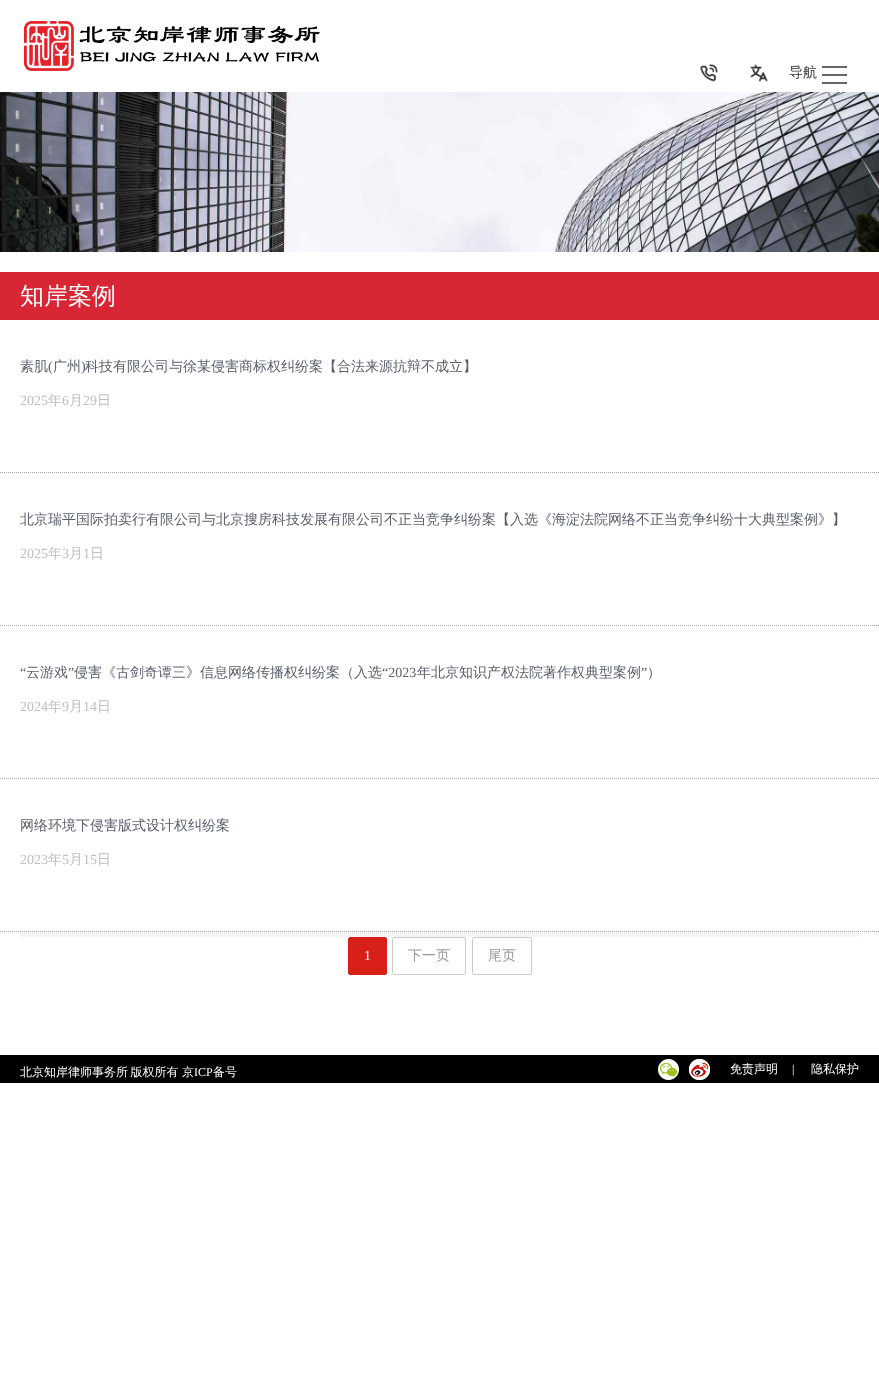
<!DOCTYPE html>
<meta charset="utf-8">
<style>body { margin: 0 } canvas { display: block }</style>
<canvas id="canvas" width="879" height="1399"></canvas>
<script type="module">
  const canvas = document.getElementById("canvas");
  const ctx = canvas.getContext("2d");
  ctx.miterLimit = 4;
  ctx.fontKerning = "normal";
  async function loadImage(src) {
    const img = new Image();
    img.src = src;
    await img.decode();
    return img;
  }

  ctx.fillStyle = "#ffffff";
  ctx.fillRect(0, 0, 879, 1399);
  ctx.drawImage(await loadImage("img1.png"), 23, 21, 297, 50);
  ctx.drawImage(await loadImage("img2.png"), 700, 64, 18, 18);
  ctx.drawImage(await loadImage("img3.png"), 750, 64, 18, 18);
  ctx.font = "500 14px WenQuanYi Zen Hei";
  ctx.fillStyle = "#333333";
  ctx.fillText("导航", 789, 77);
  ctx.fillStyle = "#666666";
  ctx.fillRect(822, 74, 25, 2);
  ctx.fillRect(822, 66, 25, 2);
  ctx.fillRect(822, 82, 25, 2);
  ctx.drawImage(await loadImage("img4.png"), 0, 92, 879, 160);
  ctx.fillStyle = "#d82634";
  ctx.fillRect(0, 272, 879, 48);
  ctx.font = "500 24px WenQuanYi Zen Hei";
  ctx.fillStyle = "#ffffff";
  ctx.fillText("知岸案例", 20, 304);
  ctx.beginPath();
  ctx.moveTo(0, 472.5);
  ctx.lineTo(879, 472.5);
  ctx.strokeStyle = "#aaaaaa";
  ctx.setLineDash([1, 1]);
  ctx.stroke();
  ctx.font = "500 14px WenQuanYi Zen Hei";
  ctx.fillStyle = "#595f6b";
  ctx.fillText("素肌", 20, 371);
  ctx.font = "14px Liberation Serif";
  ctx.fillText("(", 48, 371);
  ctx.font = "500 14px WenQuanYi Zen Hei";
  ctx.fillText("广州", 53, 371);
  ctx.font = "14px Liberation Serif";
  ctx.fillText(")", 81, 371);
  ctx.font = "500 14px WenQuanYi Zen Hei";
  ctx.fillText("科技有限公司与徐某侵害商标权纠纷案【合法来源抗辩不成立】", 85, 371);
  ctx.font = "14px Liberation Serif";
  ctx.fillStyle = "#bfbfbf";
  ctx.fillText("2025", 20, 405);
  ctx.font = "500 14px WenQuanYi Zen Hei";
  ctx.fillText("年", 48, 405);
  ctx.font = "14px Liberation Serif";
  ctx.fillText("6", 62, 405);
  ctx.font = "500 14px WenQuanYi Zen Hei";
  ctx.fillText("月", 69, 405);
  ctx.font = "14px Liberation Serif";
  ctx.fillText("29", 83, 405);
  ctx.font = "500 14px WenQuanYi Zen Hei";
  ctx.fillText("日", 97, 405);
  ctx.beginPath();
  ctx.moveTo(0, 625.5);
  ctx.lineTo(879, 625.5);
  ctx.stroke();
  ctx.fillStyle = "#595f6b";
  ctx.fillText("北京瑞平国际拍卖行有限公司与北京搜房科技发展有限公司不正当竞争纠纷案【入选《海淀法院网络不正当竞争纠纷十大典型案例》】", 20, 524);
  ctx.font = "14px Liberation Serif";
  ctx.fillStyle = "#bfbfbf";
  ctx.fillText("2025", 20, 558);
  ctx.font = "500 14px WenQuanYi Zen Hei";
  ctx.fillText("年", 48, 558);
  ctx.font = "14px Liberation Serif";
  ctx.fillText("3", 62, 558);
  ctx.font = "500 14px WenQuanYi Zen Hei";
  ctx.fillText("月", 69, 558);
  ctx.font = "14px Liberation Serif";
  ctx.fillText("1", 83, 558);
  ctx.font = "500 14px WenQuanYi Zen Hei";
  ctx.fillText("日", 90, 558);
  ctx.beginPath();
  ctx.moveTo(0, 778.5);
  ctx.lineTo(879, 778.5);
  ctx.stroke();
  ctx.font = "14px Liberation Serif";
  ctx.fillStyle = "#595f6b";
  ctx.fillText("“", 20, 677);
  ctx.font = "500 14px WenQuanYi Zen Hei";
  ctx.fillText("云游戏", 26, 677);
  ctx.font = "14px Liberation Serif";
  ctx.fillText("”", 68, 677);
  ctx.font = "500 14px WenQuanYi Zen Hei";
  ctx.fillText("侵害《古剑奇谭三》信息网络传播权纠纷案（入选", 74, 677);
  ctx.font = "14px Liberation Serif";
  ctx.fillText("“2023", 382, 677);
  ctx.font = "500 14px WenQuanYi Zen Hei";
  ctx.fillText("年北京知识产权法院著作权典型案例", 417, 677);
  ctx.font = "14px Liberation Serif";
  ctx.fillText("”", 641, 677);
  ctx.font = "500 14px WenQuanYi Zen Hei";
  ctx.fillText("）", 647, 677);
  ctx.font = "14px Liberation Serif";
  ctx.fillStyle = "#bfbfbf";
  ctx.fillText("2024", 20, 711);
  ctx.font = "500 14px WenQuanYi Zen Hei";
  ctx.fillText("年", 48, 711);
  ctx.font = "14px Liberation Serif";
  ctx.fillText("9", 62, 711);
  ctx.font = "500 14px WenQuanYi Zen Hei";
  ctx.fillText("月", 69, 711);
  ctx.font = "14px Liberation Serif";
  ctx.fillText("14", 83, 711);
  ctx.font = "500 14px WenQuanYi Zen Hei";
  ctx.fillText("日", 97, 711);
  ctx.beginPath();
  ctx.moveTo(0, 931.5);
  ctx.lineTo(879, 931.5);
  ctx.stroke();
  ctx.fillStyle = "#595f6b";
  ctx.fillText("网络环境下侵害版式设计权纠纷案", 20, 830);
  ctx.font = "14px Liberation Serif";
  ctx.fillStyle = "#bfbfbf";
  ctx.fillText("2023", 20, 864);
  ctx.font = "500 14px WenQuanYi Zen Hei";
  ctx.fillText("年", 48, 864);
  ctx.font = "14px Liberation Serif";
  ctx.fillText("5", 62, 864);
  ctx.font = "500 14px WenQuanYi Zen Hei";
  ctx.fillText("月", 69, 864);
  ctx.font = "14px Liberation Serif";
  ctx.fillText("15", 83, 864);
  ctx.font = "500 14px WenQuanYi Zen Hei";
  ctx.fillText("日", 97, 864);
  ctx.fillStyle = "#f4f5f6";
  ctx.fillRect(20, 932, 839, 5);
  ctx.fillStyle = "#d82019";
  ctx.beginPath();
  ctx.roundRect(348.5, 937.5, 38, 37, 1.5);
  ctx.fill();
  ctx.strokeStyle = "#d82019";
  ctx.setLineDash([]);
  ctx.stroke();
  ctx.font = "14px Liberation Serif";
  ctx.fillStyle = "#ffffff";
  ctx.fillText("1", 364, 960);
  ctx.beginPath();
  ctx.roundRect(392.5, 937.5, 73, 37, 1.5);
  ctx.strokeStyle = "#cccccc";
  ctx.stroke();
  ctx.font = "500 14px WenQuanYi Zen Hei";
  ctx.fillStyle = "#999999";
  ctx.fillText("下一页", 408, 960);
  ctx.beginPath();
  ctx.roundRect(472.5, 937.5, 59, 37, 1.5);
  ctx.stroke();
  ctx.fillText("尾页", 488, 960);
  ctx.fillStyle = "#000000";
  ctx.fillRect(0, 1055, 879, 28);
  ctx.wordSpacing = "-1px";
  ctx.font = "500 12px WenQuanYi Zen Hei";
  ctx.fillStyle = "#ffffff";
  ctx.fillText("北京知岸律师事务所 版权所有", 20, 1076);
  ctx.wordSpacing = "0px";
  ctx.fillText("京", 182, 1076);
  ctx.font = "12px Liberation Serif";
  ctx.fillText("ICP", 194, 1076);
  ctx.font = "500 12px WenQuanYi Zen Hei";
  ctx.fillText("备号", 213, 1076);
  ctx.drawImage(await loadImage("img5.png"), 658, 1059, 21, 21);
  ctx.drawImage(await loadImage("img6.png"), 689, 1059, 21, 21);
  ctx.fillText("免责声明", 730, 1073);
  ctx.font = "12px Liberation Serif";
  ctx.fillText("|", 792, 1073);
  ctx.font = "500 12px WenQuanYi Zen Hei";
  ctx.fillText("隐私保护", 811, 1073);
</script>
